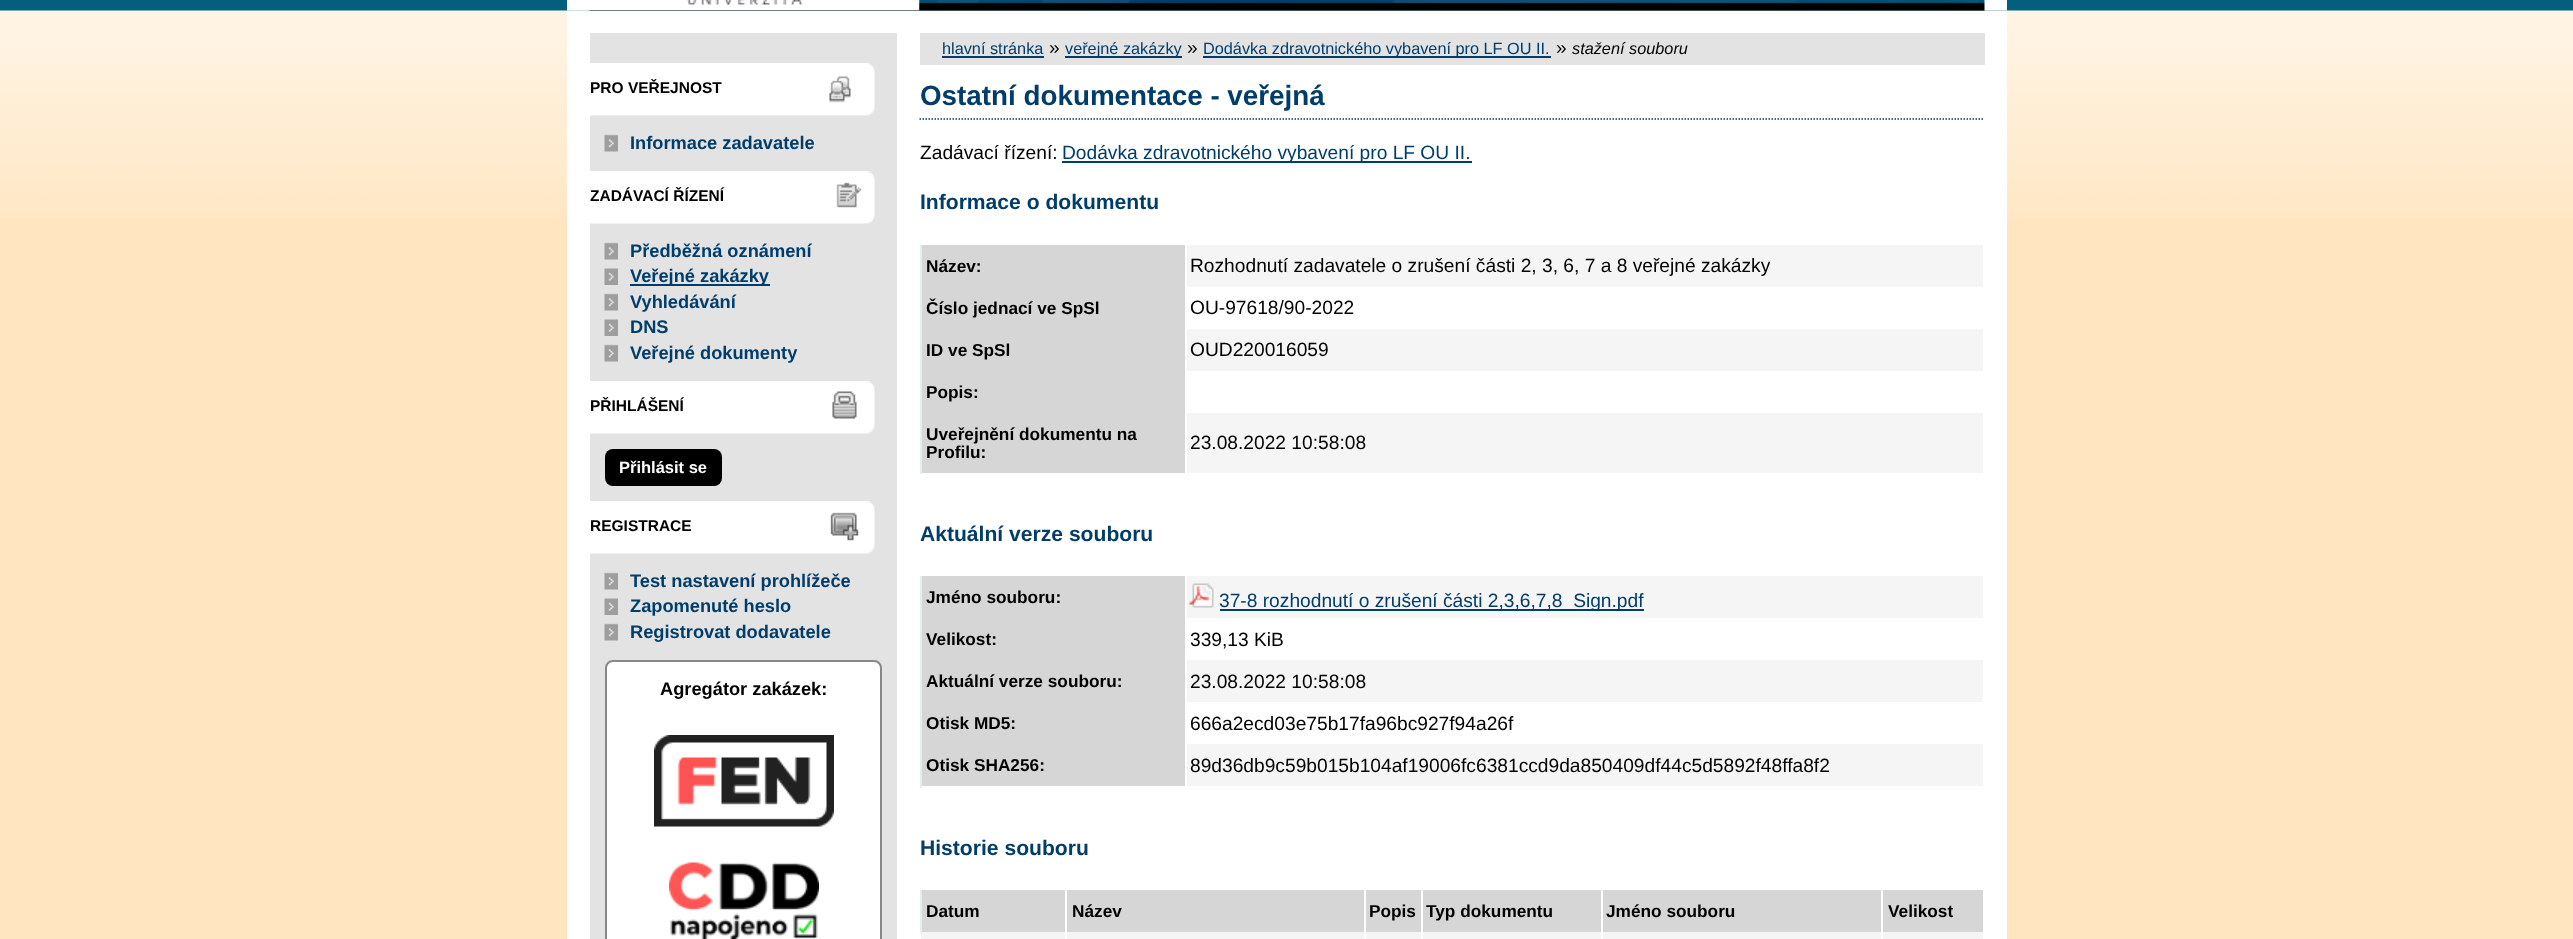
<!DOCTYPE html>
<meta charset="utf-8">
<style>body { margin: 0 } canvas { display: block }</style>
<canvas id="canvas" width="2573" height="939"></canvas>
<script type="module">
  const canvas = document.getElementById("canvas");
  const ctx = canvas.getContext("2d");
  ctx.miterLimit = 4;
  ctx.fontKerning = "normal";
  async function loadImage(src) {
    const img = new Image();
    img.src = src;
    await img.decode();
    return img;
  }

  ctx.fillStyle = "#ffe5c0";
  ctx.fillRect(0, 0, 2573, 939);
  ctx.drawImage(await loadImage("img1.png"), 0, 0, 2573, 219);
  ctx.drawImage(await loadImage("img2.png"), 567, 0, 1440, 11);
  ctx.drawImage(await loadImage("img3.png"), 567, 0, 353, 11);
  ctx.fillStyle = "#ffffff";
  ctx.fillRect(567, 11, 1440, 928);
  ctx.fillStyle = "#e3e3e3";
  ctx.fillRect(590, 33, 307, 906);
  ctx.drawImage(await loadImage("img4.png"), 590, 63, 285, 53);
  ctx.font = "bold 15.5px Liberation Sans";
  ctx.fillStyle = "#000000";
  ctx.fillText("PRO VEŘEJNOST", 590, 93);
  ctx.drawImage(await loadImage("img5.png"), 604, 134, 14, 18);
  ctx.font = "bold 18.25px Liberation Sans";
  ctx.fillStyle = "#003d6b";
  ctx.fillText("Informace zadavatele", 630, 149);
  ctx.drawImage(await loadImage("img6.png"), 590, 171, 285, 53);
  ctx.font = "bold 15.5px Liberation Sans";
  ctx.fillStyle = "#000000";
  ctx.fillText("ZADÁVACÍ ŘÍZENÍ", 590, 201);
  ctx.drawImage(await loadImage("img5.png"), 604, 242, 14, 18);
  ctx.font = "bold 18.25px Liberation Sans";
  ctx.fillStyle = "#003d6b";
  ctx.fillText("Předběžná oznámení", 630, 257);
  ctx.drawImage(await loadImage("img7.png"), 604, 268, 14, 17);
  ctx.fillRect(630, 284, 140, 2);
  ctx.fillText("Veřejné zakázky", 630, 282);
  ctx.drawImage(await loadImage("img5.png"), 604, 293, 14, 18);
  ctx.fillText("Vyhledávání", 630, 308);
  ctx.drawImage(await loadImage("img7.png"), 604, 319, 14, 17);
  ctx.fillText("DNS", 630, 333);
  ctx.drawImage(await loadImage("img5.png"), 604, 344, 14, 18);
  ctx.fillText("Veřejné dokumenty", 630, 359);
  ctx.drawImage(await loadImage("img8.png"), 590, 381, 285, 53);
  ctx.font = "bold 15.5px Liberation Sans";
  ctx.fillStyle = "#000000";
  ctx.fillText("PŘIHLÁŠENÍ", 590, 411);
  ctx.beginPath();
  ctx.roundRect(605, 449, 117, 37, 8);
  ctx.fill();
  ctx.font = "bold 16.5px Liberation Sans";
  ctx.fillStyle = "#ffffff";
  ctx.fillText("Přihlásit se", 619, 473);
  ctx.drawImage(await loadImage("img9.png"), 590, 501, 285, 53);
  ctx.font = "bold 15.5px Liberation Sans";
  ctx.fillStyle = "#000000";
  ctx.fillText("REGISTRACE", 590, 531);
  ctx.drawImage(await loadImage("img5.png"), 604, 572, 14, 18);
  ctx.font = "bold 18.25px Liberation Sans";
  ctx.fillStyle = "#003d6b";
  ctx.fillText("Test nastavení prohlížeče", 630, 587);
  ctx.drawImage(await loadImage("img7.png"), 604, 598, 14, 17);
  ctx.fillText("Zapomenuté heslo", 630, 612);
  ctx.drawImage(await loadImage("img5.png"), 604, 623, 14, 18);
  ctx.fillText("Registrovat dodavatele", 630, 638);
  ctx.fillStyle = "#ffffff";
  ctx.beginPath();
  ctx.roundRect(606, 661, 275, 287, 7);
  ctx.fill();
  ctx.strokeStyle = "#888888";
  ctx.lineWidth = 2;
  ctx.stroke();
  ctx.fillStyle = "#000000";
  ctx.fillText("Agregátor zakázek:", 660, 695);
  ctx.drawImage(await loadImage("img10.png"), 654, 735, 180, 92);
  ctx.drawImage(await loadImage("img11.png"), 669, 862, 150, 77);
  ctx.fillStyle = "#e3e3e3";
  ctx.fillRect(920, 33, 1065, 32);
  ctx.font = "16.3px Liberation Sans";
  ctx.fillStyle = "#003d6b";
  ctx.fillText("hlavní stránka", 942, 54);
  ctx.fillRect(942, 56, 102, 2);
  ctx.font = "19.2px Liberation Sans";
  ctx.fillStyle = "#000000";
  ctx.fillText("»", 1049, 54);
  ctx.fillStyle = "#003d6b";
  ctx.fillRect(1065, 56, 117, 2);
  ctx.font = "16.3px Liberation Sans";
  ctx.fillText("veřejné zakázky", 1065, 54);
  ctx.font = "19.2px Liberation Sans";
  ctx.fillStyle = "#000000";
  ctx.fillText("»", 1187, 54);
  ctx.fillStyle = "#003d6b";
  ctx.fillRect(1203, 56, 348, 2);
  ctx.font = "16.3px Liberation Sans";
  ctx.fillText("Dodávka zdravotnického vybavení pro LF OU II.", 1203, 54);
  ctx.font = "19.2px Liberation Sans";
  ctx.fillStyle = "#000000";
  ctx.fillText("»", 1556, 54);
  ctx.font = "italic 16.3px Liberation Sans";
  ctx.fillText("stažení souboru", 1572, 54);
  ctx.beginPath();
  ctx.moveTo(919.5, 119);
  ctx.lineTo(1984.5, 119);
  ctx.strokeStyle = "#003d6b";
  ctx.lineWidth = 1.5;
  ctx.setLineDash([1.5, 1.5]);
  ctx.stroke();
  ctx.font = "bold 27.8px Liberation Sans";
  ctx.fillStyle = "#003d6b";
  ctx.fillText("Ostatní dokumentace - veřejná", 920, 105);
  ctx.font = "19.2px Liberation Sans";
  ctx.fillStyle = "#000000";
  ctx.fillText("Zadávací řízení:", 920, 159);
  ctx.fillStyle = "#003d6b";
  ctx.fillRect(1062, 161, 410, 2);
  ctx.fillText("Dodávka zdravotnického vybavení pro LF OU II.", 1062, 159);
  ctx.font = "bold 21.1px Liberation Sans";
  ctx.fillText("Informace o dokumentu", 920, 209);
  ctx.fillStyle = "#f5f5f5";
  ctx.fillRect(1187, 245, 796, 42);
  ctx.fillStyle = "#d6d6d6";
  ctx.fillRect(922, 245, 263, 228);
  ctx.font = "bold 17.25px Liberation Sans";
  ctx.fillStyle = "#000000";
  ctx.fillText("Název:", 926, 272);
  ctx.font = "19.2px Liberation Sans";
  ctx.fillText("Rozhodnutí zadavatele o zrušení části 2, 3, 6, 7 a 8 veřejné zakázky", 1190, 272);
  ctx.font = "bold 17.25px Liberation Sans";
  ctx.fillText("Číslo jednací ve SpSl", 926, 314);
  ctx.font = "19.2px Liberation Sans";
  ctx.fillText("OU-97618/90-2022", 1190, 314);
  ctx.fillStyle = "#f5f5f5";
  ctx.fillRect(1187, 329, 796, 42);
  ctx.font = "bold 17.25px Liberation Sans";
  ctx.fillStyle = "#000000";
  ctx.fillText("ID ve SpSl", 926, 356);
  ctx.font = "19.2px Liberation Sans";
  ctx.fillText("OUD220016059", 1190, 356);
  ctx.font = "bold 17.25px Liberation Sans";
  ctx.fillText("Popis:", 926, 398);
  ctx.fillStyle = "#f5f5f5";
  ctx.fillRect(1187, 413, 796, 60);
  ctx.fillStyle = "#e1eef2";
  ctx.fillRect(920, 245, 2, 229);
  ctx.fillStyle = "#000000";
  ctx.fillText("Uveřejnění dokumentu na", 926, 440);
  ctx.fillText("Profilu:", 926, 458);
  ctx.font = "19.2px Liberation Sans";
  ctx.fillText("23.08.2022 10:58:08", 1190, 449);
  ctx.font = "bold 21.1px Liberation Sans";
  ctx.fillStyle = "#003d6b";
  ctx.fillText("Aktuální verze souboru", 920, 541);
  ctx.fillStyle = "#f5f5f5";
  ctx.fillRect(1187, 576, 796, 42);
  ctx.fillStyle = "#d6d6d6";
  ctx.fillRect(922, 576, 263, 210);
  ctx.font = "bold 17.25px Liberation Sans";
  ctx.fillStyle = "#000000";
  ctx.fillText("Jméno souboru:", 926, 603);
  ctx.drawImage(await loadImage("img12.png"), 1189, 583, 25, 25);
  ctx.fillStyle = "#003d6b";
  ctx.fillRect(1220, 609, 424, 2);
  ctx.font = "19.2px Liberation Sans";
  ctx.fillText("37-8 rozhodnutí o zrušení části 2,3,6,7,8_Sign.pdf", 1219, 607);
  ctx.font = "bold 17.25px Liberation Sans";
  ctx.fillStyle = "#000000";
  ctx.fillText("Velikost:", 926, 645);
  ctx.font = "19.2px Liberation Sans";
  ctx.fillText("339,13 KiB", 1190, 646);
  ctx.fillStyle = "#f5f5f5";
  ctx.fillRect(1187, 660, 796, 42);
  ctx.font = "bold 17.25px Liberation Sans";
  ctx.fillStyle = "#000000";
  ctx.fillText("Aktuální verze souboru:", 926, 687);
  ctx.font = "19.2px Liberation Sans";
  ctx.fillText("23.08.2022 10:58:08", 1190, 688);
  ctx.font = "bold 17.25px Liberation Sans";
  ctx.fillText("Otisk MD5:", 926, 729);
  ctx.font = "19.2px Liberation Sans";
  ctx.fillText("666a2ecd03e75b17fa96bc927f94a26f", 1190, 730);
  ctx.fillStyle = "#f5f5f5";
  ctx.fillRect(1187, 744, 796, 42);
  ctx.fillStyle = "#e1eef2";
  ctx.fillRect(920, 576, 2, 212);
  ctx.font = "bold 17.25px Liberation Sans";
  ctx.fillStyle = "#000000";
  ctx.fillText("Otisk SHA256:", 926, 771);
  ctx.font = "19.2px Liberation Sans";
  ctx.fillText("89d36db9c59b015b104af19006fc6381ccd9da850409df44c5d5892f48ffa8f2", 1190, 772);
  ctx.font = "bold 21.1px Liberation Sans";
  ctx.fillStyle = "#003d6b";
  ctx.fillText("Historie souboru", 920, 855);
  ctx.fillStyle = "#d6d6d6";
  ctx.fillRect(922, 890, 143, 42);
  ctx.fillStyle = "#f5f5f5";
  ctx.fillRect(921, 932, 1064, 7);
  ctx.fillStyle = "#e1eef2";
  ctx.fillRect(920, 890, 2, 43);
  ctx.font = "bold 17.25px Liberation Sans";
  ctx.fillStyle = "#000000";
  ctx.fillText("Datum", 926, 917);
  ctx.fillStyle = "#d6d6d6";
  ctx.fillRect(1067, 890, 297, 42);
  ctx.fillStyle = "#000000";
  ctx.fillText("Název", 1072, 917);
  ctx.fillStyle = "#d6d6d6";
  ctx.fillRect(1366, 890, 55, 42);
  ctx.fillStyle = "#000000";
  ctx.fillText("Popis", 1369, 917);
  ctx.fillStyle = "#d6d6d6";
  ctx.fillRect(1423, 890, 178, 42);
  ctx.fillStyle = "#000000";
  ctx.fillText("Typ dokumentu", 1426, 917);
  ctx.fillStyle = "#d6d6d6";
  ctx.fillRect(1603, 890, 278, 42);
  ctx.fillStyle = "#000000";
  ctx.fillText("Jméno souboru", 1606, 917);
  ctx.fillStyle = "#d6d6d6";
  ctx.fillRect(1883, 890, 100, 42);
  ctx.fillStyle = "#000000";
  ctx.fillText("Velikost", 1888, 917);
  ctx.fillStyle = "#ffffff";
  ctx.fillRect(1065, 932, 2, 7);
  ctx.fillRect(1364, 932, 2, 7);
  ctx.fillRect(1421, 932, 2, 7);
  ctx.fillRect(1601, 932, 2, 7);
  ctx.fillRect(1881, 932, 2, 7);
  ctx.fillRect(1983, 932, 2, 7);
</script>
